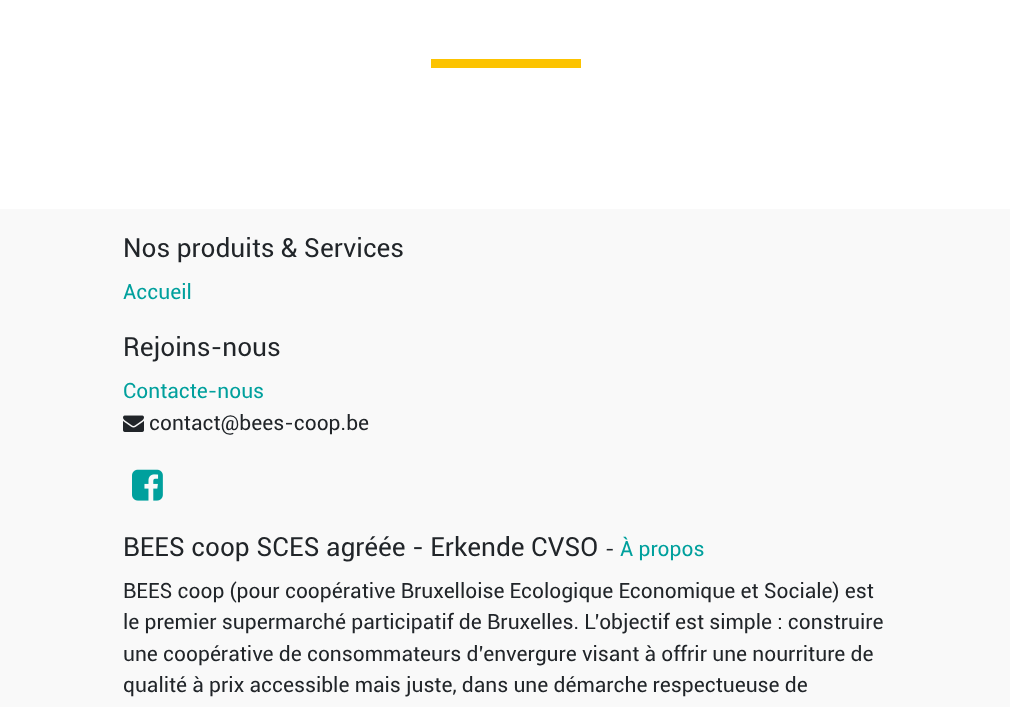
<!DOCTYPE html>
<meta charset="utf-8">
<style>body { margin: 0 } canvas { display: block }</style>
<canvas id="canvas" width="1010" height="707"></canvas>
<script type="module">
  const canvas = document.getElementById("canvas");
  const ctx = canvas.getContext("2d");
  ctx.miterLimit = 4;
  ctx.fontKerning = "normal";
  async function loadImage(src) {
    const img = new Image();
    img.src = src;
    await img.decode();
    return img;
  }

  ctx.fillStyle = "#ffffff";
  ctx.fillRect(0, 0, 1010, 707);
  ctx.fillStyle = "#fcc300";
  ctx.fillRect(431, 59, 150, 9);
  ctx.fillStyle = "#f9f9f9";
  ctx.fillRect(0, 209, 1010, 498);
  ctx.font = "26.25px Roboto";
  ctx.fillStyle = "#212529";
  ctx.fillText("Nos produits & Services", 123, 257);
  ctx.font = "21px Roboto";
  ctx.fillStyle = "#00a09d";
  ctx.fillText("Accueil", 123, 299);
  ctx.font = "26.25px Roboto";
  ctx.fillStyle = "#212529";
  ctx.fillText("Rejoins-nous", 123, 356);
  ctx.font = "21px Roboto";
  ctx.fillStyle = "#00a09d";
  ctx.fillText("Contacte-nous", 123, 398);
  ctx.drawImage(await loadImage("img1.png"), 123, 415, 21, 17);
  ctx.fillStyle = "#212529";
  ctx.fillText("contact@bees-coop.be", 149, 430);
  ctx.drawImage(await loadImage("img2.png"), 132, 469, 31, 32);
  ctx.font = "26.25px Roboto";
  ctx.fillText("BEES coop SCES agréée - Erkende CVSO", 123, 556);
  ctx.font = "21px Roboto";
  ctx.fillText("-", 605, 556);
  ctx.fillStyle = "#00a09d";
  ctx.fillText("À propos", 620, 556);
  ctx.fillStyle = "#212529";
  ctx.fillText("BEES coop (pour coopérative Bruxelloise Ecologique Economique et Sociale) est", 123, 598);
  ctx.fillText("le premier supermarché participatif de Bruxelles. L’objectif est simple : construire", 123, 629);
  ctx.fillText("une coopérative de consommateurs d’envergure visant à offrir une nourriture de", 123, 661);
  ctx.fillText("qualité à prix accessible mais juste, dans une démarche respectueuse de", 123, 692);
</script>
